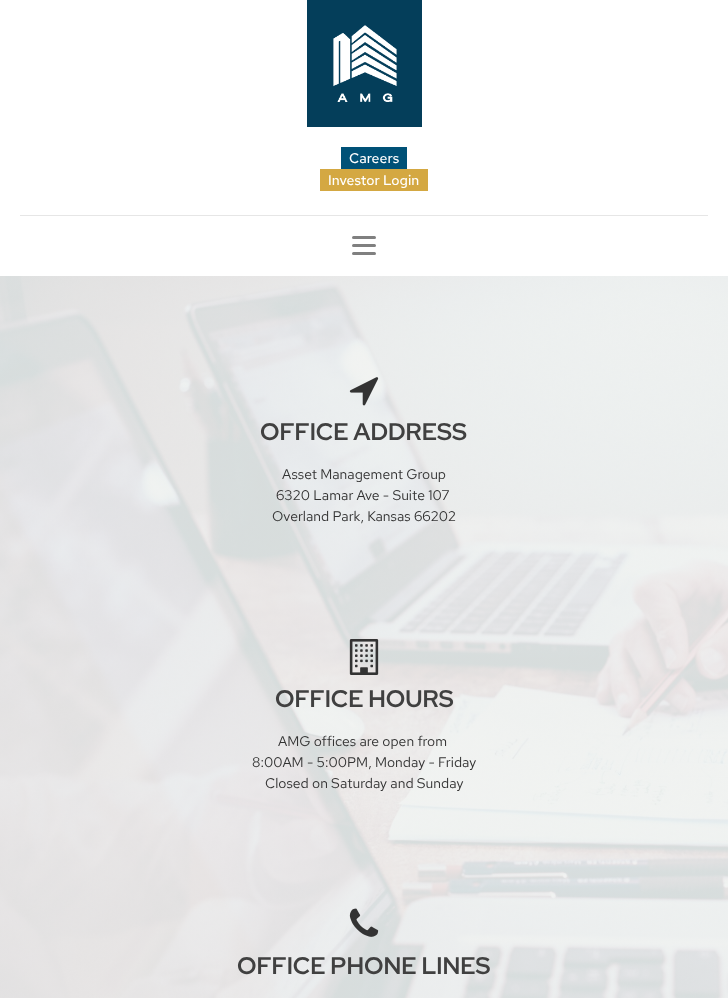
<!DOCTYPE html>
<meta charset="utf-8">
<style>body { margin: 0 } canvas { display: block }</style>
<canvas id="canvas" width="728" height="998"></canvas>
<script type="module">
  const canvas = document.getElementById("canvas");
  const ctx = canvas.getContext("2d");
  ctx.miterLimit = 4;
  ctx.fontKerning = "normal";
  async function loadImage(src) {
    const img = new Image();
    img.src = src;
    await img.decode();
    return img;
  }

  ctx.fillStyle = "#ffffff";
  ctx.fillRect(0, 0, 728, 998);
  ctx.fillStyle = "#043e5a";
  ctx.fillRect(307, 0, 115, 127);
  ctx.drawImage(await loadImage("img1.png"), 333, 25, 64, 77);
  ctx.fillStyle = "#e6e6e6";
  ctx.fillRect(20, 215, 688, 1);
  ctx.fillStyle = "#005177";
  ctx.fillRect(341, 147, 66, 22);
  ctx.font = "500 14px Red Hat Text";
  ctx.fillStyle = "#ffffff";
  ctx.fillText("Careers", 349, 163);
  ctx.fillStyle = "#d4a842";
  ctx.fillRect(320, 169, 108, 22);
  ctx.fillStyle = "#ffffff";
  ctx.fillText("Investor Login", 328, 185);
  ctx.fillStyle = "#808080";
  ctx.beginPath();
  ctx.roundRect(352, 236, 24, 3, 1.5);
  ctx.fill();
  ctx.beginPath();
  ctx.roundRect(352, 244, 24, 3, 1.5);
  ctx.fill();
  ctx.beginPath();
  ctx.roundRect(352, 252, 24, 3, 1.5);
  ctx.fill();
  ctx.drawImage(await loadImage("img2.png"), 0, 276, 728, 722);
  ctx.drawImage(await loadImage("img3.png"), 349, 377, 30, 29);
  ctx.font = "bold 24px Red Hat Display";
  ctx.fillStyle = "#404040";
  ctx.fillText("OFFICE ADDRESS", 260, 440);
  ctx.font = "14px Red Hat Text";
  ctx.fillStyle = "#333333";
  ctx.fillText("Asset Management Group", 282, 479);
  ctx.fillText("6320 Lamar Ave - Suite 107", 276, 500);
  ctx.fillText("Overland Park, Kansas 66202", 272, 521);
  ctx.drawImage(await loadImage("img4.png"), 349, 639, 30, 36);
  ctx.font = "bold 24px Red Hat Display";
  ctx.fillStyle = "#404040";
  ctx.fillText("OFFICE HOURS", 275, 707);
  ctx.font = "14px Red Hat Text";
  ctx.fillStyle = "#333333";
  ctx.fillText("AMG offices are open from", 278, 746);
  ctx.fillText("8:00AM - 5:00PM, Monday - Friday", 252, 767);
  ctx.fillText("Closed on Saturday and Sunday", 265, 788);
  ctx.drawImage(await loadImage("img5.png"), 349, 908, 30, 29);
  ctx.font = "bold 24px Red Hat Display";
  ctx.fillStyle = "#404040";
  ctx.fillText("OFFICE PHONE LINES", 237, 974);
</script>
